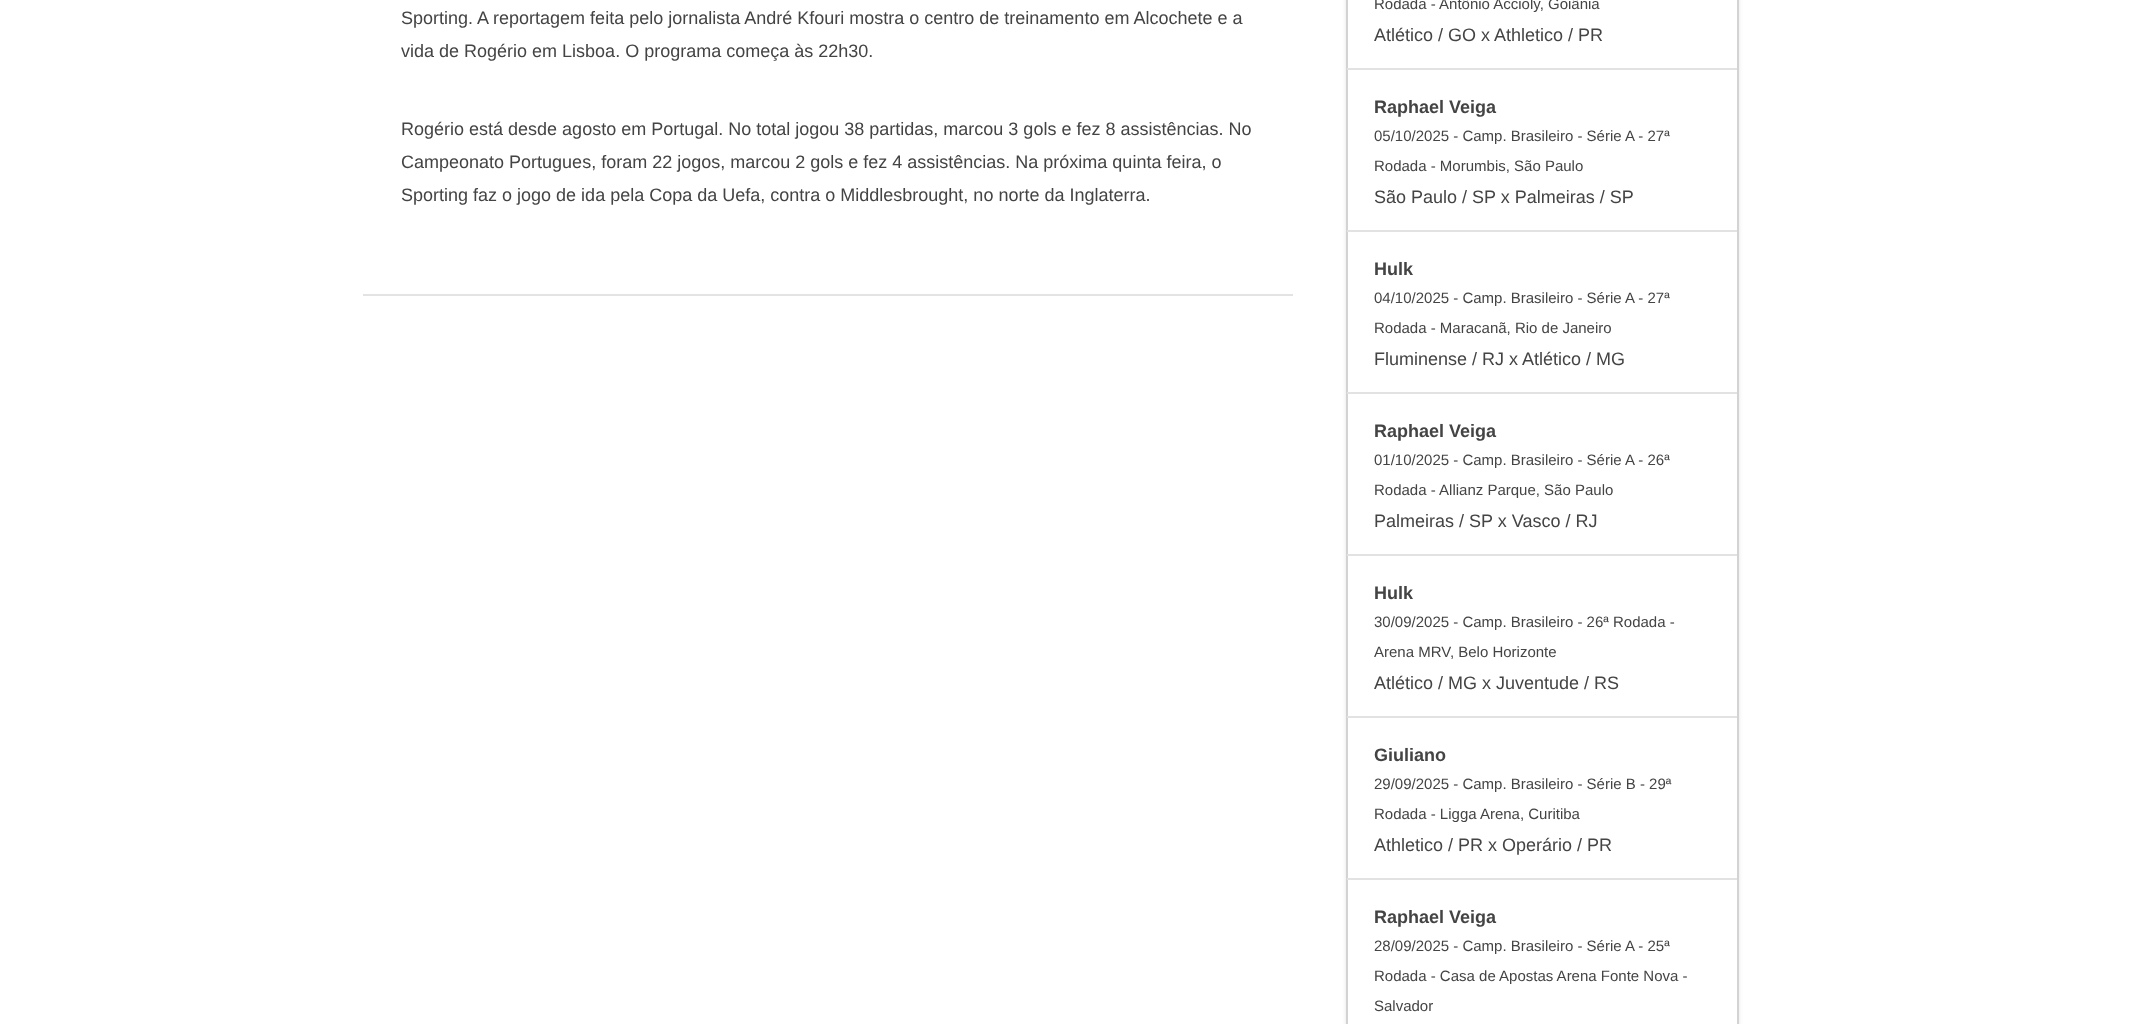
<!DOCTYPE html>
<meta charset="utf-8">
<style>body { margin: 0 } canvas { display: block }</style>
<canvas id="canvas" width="2135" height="1024"></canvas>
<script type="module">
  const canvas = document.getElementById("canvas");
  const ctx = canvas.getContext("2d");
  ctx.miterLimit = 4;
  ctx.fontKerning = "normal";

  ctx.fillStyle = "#ffffff";
  ctx.fillRect(0, 0, 2135, 1024);
  ctx.fillStyle = "#e3e3e3";
  ctx.fillRect(363, 294, 930, 2);
  ctx.font = "18px Liberation Sans";
  ctx.fillStyle = "#444444";
  ctx.fillText("Sporting. A reportagem feita pelo jornalista André Kfouri mostra o centro de treinamento em Alcochete e a", 401, 24);
  ctx.fillText("vida de Rogério em Lisboa. O programa começa às 22h30.", 401, 57);
  ctx.fillText("Rogério está desde agosto em Portugal. No total jogou 38 partidas, marcou 3 gols e fez 8 assistências. No", 401, 135);
  ctx.fillText("Campeonato Portugues, foram 22 jogos, marcou 2 gols e fez 4 assistências. Na próxima quinta feira, o", 401, 168);
  ctx.fillText("Sporting faz o jogo de ida pela Copa da Uefa, contra o Middlesbrought, no norte da Inglaterra.", 401, 201);
  ctx.fillStyle = "rgba(0, 0, 0, 0.1)";
  ctx.filter = "blur(2px)";
  ctx.beginPath();
  ctx.roundRect(1346, -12, 393, 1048, 6);
  ctx.fill();
  ctx.filter = "none";
  ctx.fillStyle = "#ffffff";
  ctx.beginPath();
  ctx.rect(1347, -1, 391, 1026);
  ctx.fill();
  ctx.strokeStyle = "#d3d3d3";
  ctx.lineWidth = 2;
  ctx.stroke();
  ctx.fillStyle = "#e2e2e2";
  ctx.fillRect(1347, 68, 390, 2);
  ctx.font = "15px Liberation Sans";
  ctx.fillStyle = "#444444";
  ctx.fillText("Rodada - Antônio Accioly, Goiânia", 1374, 9);
  ctx.font = "18px Liberation Sans";
  ctx.fillText("Atlético / GO x", 1374, 41);
  ctx.fillText("Athletico / PR", 1494, 41);
  ctx.fillStyle = "#e2e2e2";
  ctx.fillRect(1347, 230, 390, 2);
  ctx.font = "bold 18px Liberation Sans";
  ctx.fillStyle = "#444444";
  ctx.fillText("Raphael Veiga", 1374, 113);
  ctx.font = "15px Liberation Sans";
  ctx.fillText("05/10/2025 - Camp. Brasileiro - Série A - 27ª", 1374, 141);
  ctx.fillText("Rodada - Morumbis, São Paulo", 1374, 171);
  ctx.font = "18px Liberation Sans";
  ctx.fillText("São Paulo / SP x Palmeiras / SP", 1374, 203);
  ctx.fillStyle = "#e2e2e2";
  ctx.fillRect(1347, 392, 390, 2);
  ctx.font = "bold 18px Liberation Sans";
  ctx.fillStyle = "#444444";
  ctx.fillText("Hulk", 1374, 275);
  ctx.font = "15px Liberation Sans";
  ctx.fillText("04/10/2025 - Camp. Brasileiro - Série A - 27ª", 1374, 303);
  ctx.fillText("Rodada - Maracanã, Rio de Janeiro", 1374, 333);
  ctx.font = "18px Liberation Sans";
  ctx.fillText("Fluminense / RJ x", 1374, 365);
  ctx.fillText("Atlético / MG", 1522, 365);
  ctx.fillStyle = "#e2e2e2";
  ctx.fillRect(1347, 554, 390, 2);
  ctx.font = "bold 18px Liberation Sans";
  ctx.fillStyle = "#444444";
  ctx.fillText("Raphael Veiga", 1374, 437);
  ctx.font = "15px Liberation Sans";
  ctx.fillText("01/10/2025 - Camp. Brasileiro - Série A - 26ª", 1374, 465);
  ctx.fillText("Rodada - Allianz Parque, São Paulo", 1374, 495);
  ctx.font = "18px Liberation Sans";
  ctx.fillText("Palmeiras / SP x Vasco / RJ", 1374, 527);
  ctx.fillStyle = "#e2e2e2";
  ctx.fillRect(1347, 716, 390, 2);
  ctx.font = "bold 18px Liberation Sans";
  ctx.fillStyle = "#444444";
  ctx.fillText("Hulk", 1374, 599);
  ctx.font = "15px Liberation Sans";
  ctx.fillText("30/09/2025 - Camp. Brasileiro - 26ª Rodada -", 1374, 627);
  ctx.fillText("Arena MRV, Belo Horizonte", 1374, 657);
  ctx.font = "18px Liberation Sans";
  ctx.fillText("Atlético / MG x Juventude / RS", 1374, 689);
  ctx.fillStyle = "#e2e2e2";
  ctx.fillRect(1347, 878, 390, 2);
  ctx.font = "bold 18px Liberation Sans";
  ctx.fillStyle = "#444444";
  ctx.fillText("Giuliano", 1374, 761);
  ctx.font = "15px Liberation Sans";
  ctx.fillText("29/09/2025 - Camp. Brasileiro - Série B - 29ª", 1374, 789);
  ctx.fillText("Rodada - Ligga Arena, Curitiba", 1374, 819);
  ctx.font = "18px Liberation Sans";
  ctx.fillText("Athletico / PR x Operário / PR", 1374, 851);
  ctx.font = "bold 18px Liberation Sans";
  ctx.fillText("Raphael Veiga", 1374, 923);
  ctx.font = "15px Liberation Sans";
  ctx.fillText("28/09/2025 - Camp. Brasileiro - Série A - 25ª", 1374, 951);
  ctx.fillText("Rodada - Casa de Apostas Arena Fonte Nova -", 1374, 981);
  ctx.fillText("Salvador", 1374, 1011);
</script>
